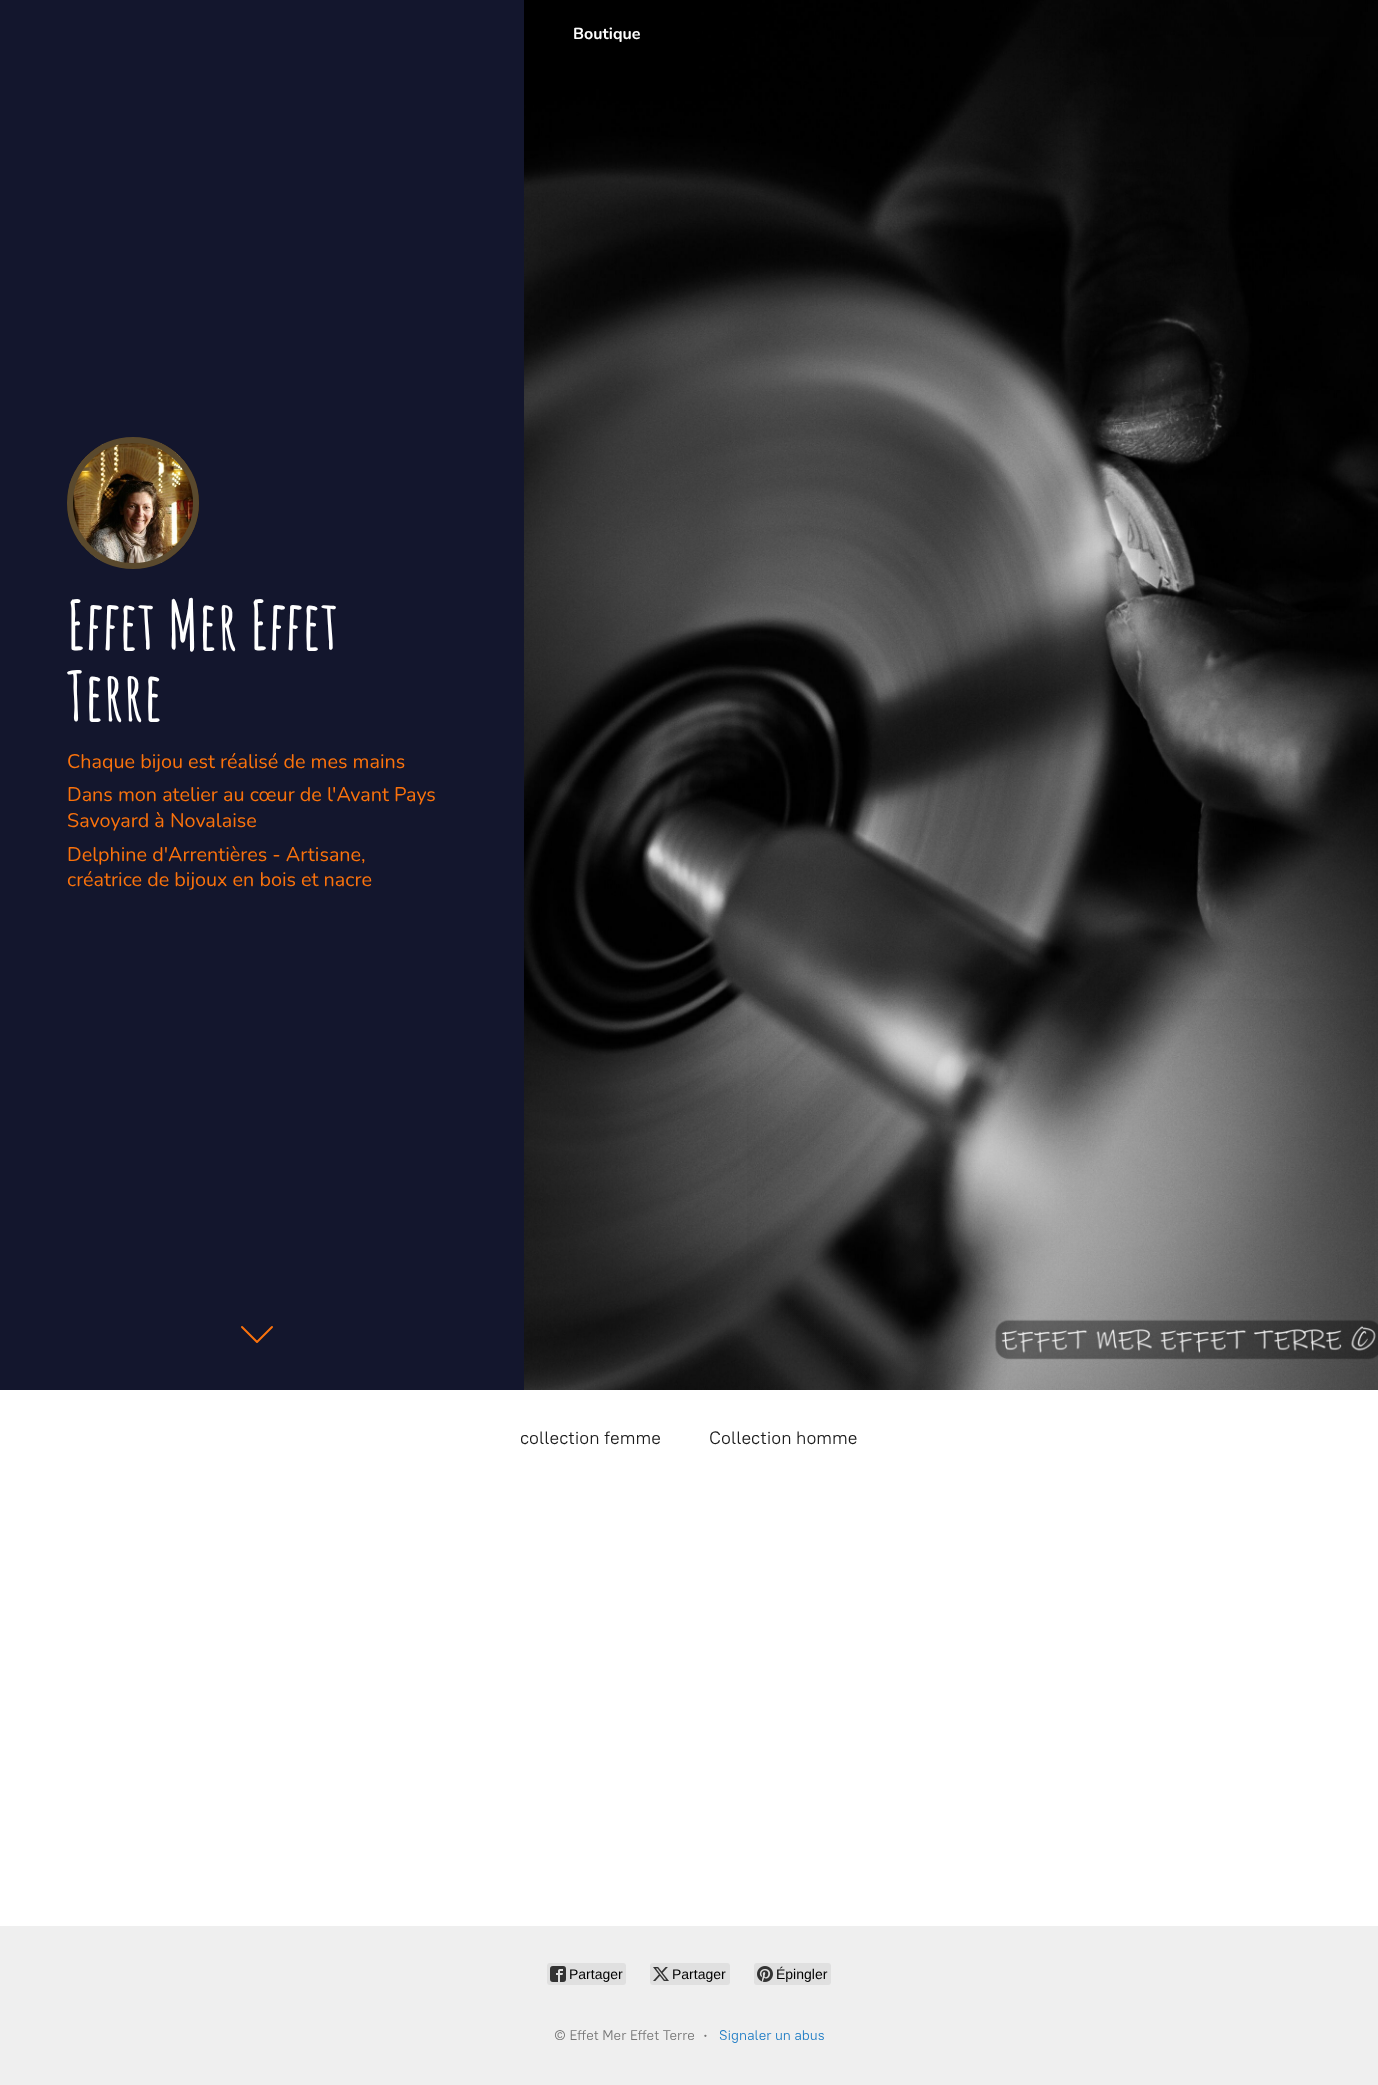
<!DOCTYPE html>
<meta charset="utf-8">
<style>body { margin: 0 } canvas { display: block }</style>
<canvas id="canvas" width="1378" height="2085"></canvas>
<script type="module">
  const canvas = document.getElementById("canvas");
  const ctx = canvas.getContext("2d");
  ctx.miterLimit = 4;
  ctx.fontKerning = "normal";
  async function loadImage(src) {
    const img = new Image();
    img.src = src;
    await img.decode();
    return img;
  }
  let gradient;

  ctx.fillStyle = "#efefef";
  ctx.fillRect(0, 0, 1378, 2085);
  ctx.fillStyle = "#ffffff";
  ctx.fillRect(0, 1390, 1378, 536);
  ctx.fillStyle = "#13162d";
  ctx.fillRect(0, 0, 524, 1390);
  ctx.drawImage(await loadImage("img2.png"), 524, 0, 854, 1390);
  gradient = ctx.createLinearGradient(689, 0, 689, 1390);
  gradient.addColorStop(0, "rgba(0, 0, 0, 0)");
  gradient.addColorStop(1, "rgba(0, 0, 0, 0.03)");
  ctx.fillStyle = gradient;
  ctx.fillRect(747, 999, 628, 391);
  ctx.font = "bold 16px Nunito";
  ctx.fillStyle = "#ffffff";
  ctx.fillText("Boutique", 573, 39);
  ctx.drawImage(await loadImage("img1.png"), 67, 443, 132, 120);
  ctx.beginPath();
  ctx.arc(133, 503, 63, 0, Math.PI * 2);
  ctx.strokeStyle = "#5a492d";
  ctx.lineWidth = 6;
  ctx.stroke();
  ctx.font = "bold 67.5px Amatic SC";
  ctx.fillText("Effet Mer Effet", 67, 650);
  ctx.fillText("Terre", 67, 721);
  ctx.font = "19.75px Nunito";
  ctx.fillStyle = "#fa720c";
  ctx.fillText("Chaque bijou est réalisé de mes mains", 67, 768);
  ctx.fillText("Dans mon atelier au cœur de l'Avant Pays", 67, 801);
  ctx.fillText("Savoyard à Novalaise", 67, 827);
  ctx.fillText("Delphine d'Arrentières - Artisane,", 67, 861);
  ctx.fillText("créatrice de bijoux en bois et nacre", 67, 886);
  ctx.beginPath();
  ctx.moveTo(272, 1327);
  ctx.lineTo(257, 1342);
  ctx.lineTo(242, 1327);
  ctx.strokeStyle = "#fa720c";
  ctx.lineWidth = 2;
  ctx.lineCap = "round";
  ctx.lineJoin = "round";
  ctx.stroke();
  ctx.font = "18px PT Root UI";
  ctx.fillStyle = "#191919";
  ctx.fillText("collection femme", 520, 1444);
  ctx.fillText("Collection homme", 709, 1444);
  ctx.fillStyle = "#e0e0e0";
  ctx.beginPath();
  ctx.roundRect(547, 1963, 79, 22, 3);
  ctx.fill();
  ctx.drawImage(await loadImage("img3.png"), 550, 1966, 16, 16);
  ctx.font = "14px Liberation Sans";
  ctx.fillStyle = "#000000";
  ctx.fillText("Partager", 569, 1979);
  ctx.fillStyle = "#e0e0e0";
  ctx.beginPath();
  ctx.roundRect(650, 1963, 80, 22, 3);
  ctx.fill();
  ctx.drawImage(await loadImage("img4.png"), 653, 1967, 16, 14);
  ctx.fillStyle = "#000000";
  ctx.fillText("Partager", 672, 1979);
  ctx.fillStyle = "#e0e0e0";
  ctx.beginPath();
  ctx.roundRect(754, 1963, 77, 22, 3);
  ctx.fill();
  ctx.drawImage(await loadImage("img5.png"), 757, 1966, 16, 16);
  ctx.fillStyle = "#000000";
  ctx.fillText("Épingler", 776, 1979);
  ctx.font = "14px PT Root UI";
  ctx.fillStyle = "#757575";
  ctx.fillText("© Effet Mer Effet Terre", 554, 2040);
  ctx.font = "500 16px PT Root UI";
  ctx.fillText("·", 703, 2040);
  ctx.font = "14px PT Root UI";
  ctx.fillStyle = "#1a7ac4";
  ctx.fillText("Signaler un abus", 719, 2040);
</script>
